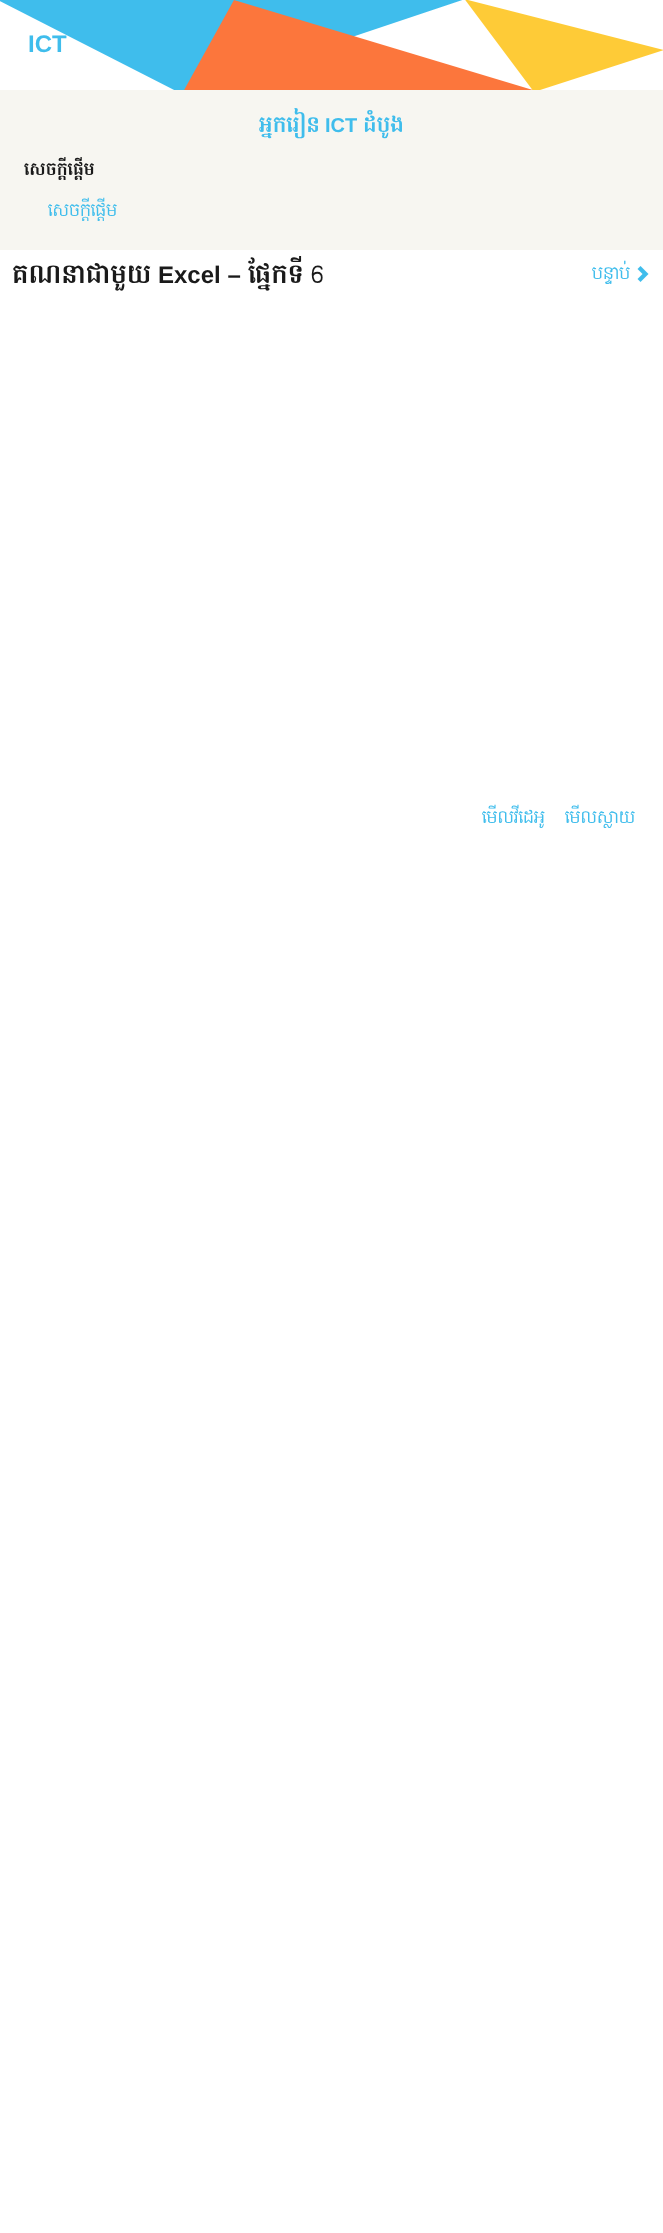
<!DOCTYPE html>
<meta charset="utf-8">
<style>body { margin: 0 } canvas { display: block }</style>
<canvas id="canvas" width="663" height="2233"></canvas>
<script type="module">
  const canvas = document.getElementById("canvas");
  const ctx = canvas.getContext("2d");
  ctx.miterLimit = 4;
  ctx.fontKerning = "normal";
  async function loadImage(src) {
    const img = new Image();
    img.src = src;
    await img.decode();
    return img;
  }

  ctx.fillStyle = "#ffffff";
  ctx.fillRect(0, 0, 663, 2233);
  ctx.drawImage(await loadImage("img1.png"), 0, 0, 663, 90);
  ctx.font = "bold 24px Liberation Sans";
  ctx.fillStyle = "#3fbdec";
  ctx.fillText("ICT", 28, 52);
  ctx.fillStyle = "#f7f6f1";
  ctx.fillRect(0, 90, 663, 160);
  ctx.font = "bold 20px Content";
  ctx.fillStyle = "#3fbdec";
  ctx.fillText("អ្នករៀន", 259, 132);
  ctx.font = "bold 20px Liberation Sans";
  ctx.fillText("ICT", 325, 132);
  ctx.font = "bold 20px Content";
  ctx.fillText("ដំបូង", 363, 132);
  ctx.font = "bold 16px Content";
  ctx.fillStyle = "#1a1a1a";
  ctx.fillText("សេចក្តីផ្តើម", 24, 175);
  ctx.font = "16px Content";
  ctx.fillStyle = "#3fbdec";
  ctx.fillText("សេចក្តីផ្តើម", 48, 216);
  ctx.font = "bold 24px Content";
  ctx.fillStyle = "#1a1a1a";
  ctx.fillText("គណនាជាមួយ", 12, 283);
  ctx.font = "bold 24px Liberation Sans";
  ctx.fillText("Excel –", 158, 283);
  ctx.font = "bold 24px Content";
  ctx.fillText("ផ្នែកទី 6", 248, 283);
  ctx.font = "16px Content";
  ctx.fillStyle = "#3fbdec";
  ctx.fillText("បន្ទាប់", 592, 279);
  ctx.drawImage(await loadImage("img2.png"), 637, 266, 12, 16);
  ctx.fillText("មើលវីដេអូ", 482, 823);
  ctx.fillText("មើលស្លាយ", 565, 823);
</script>
